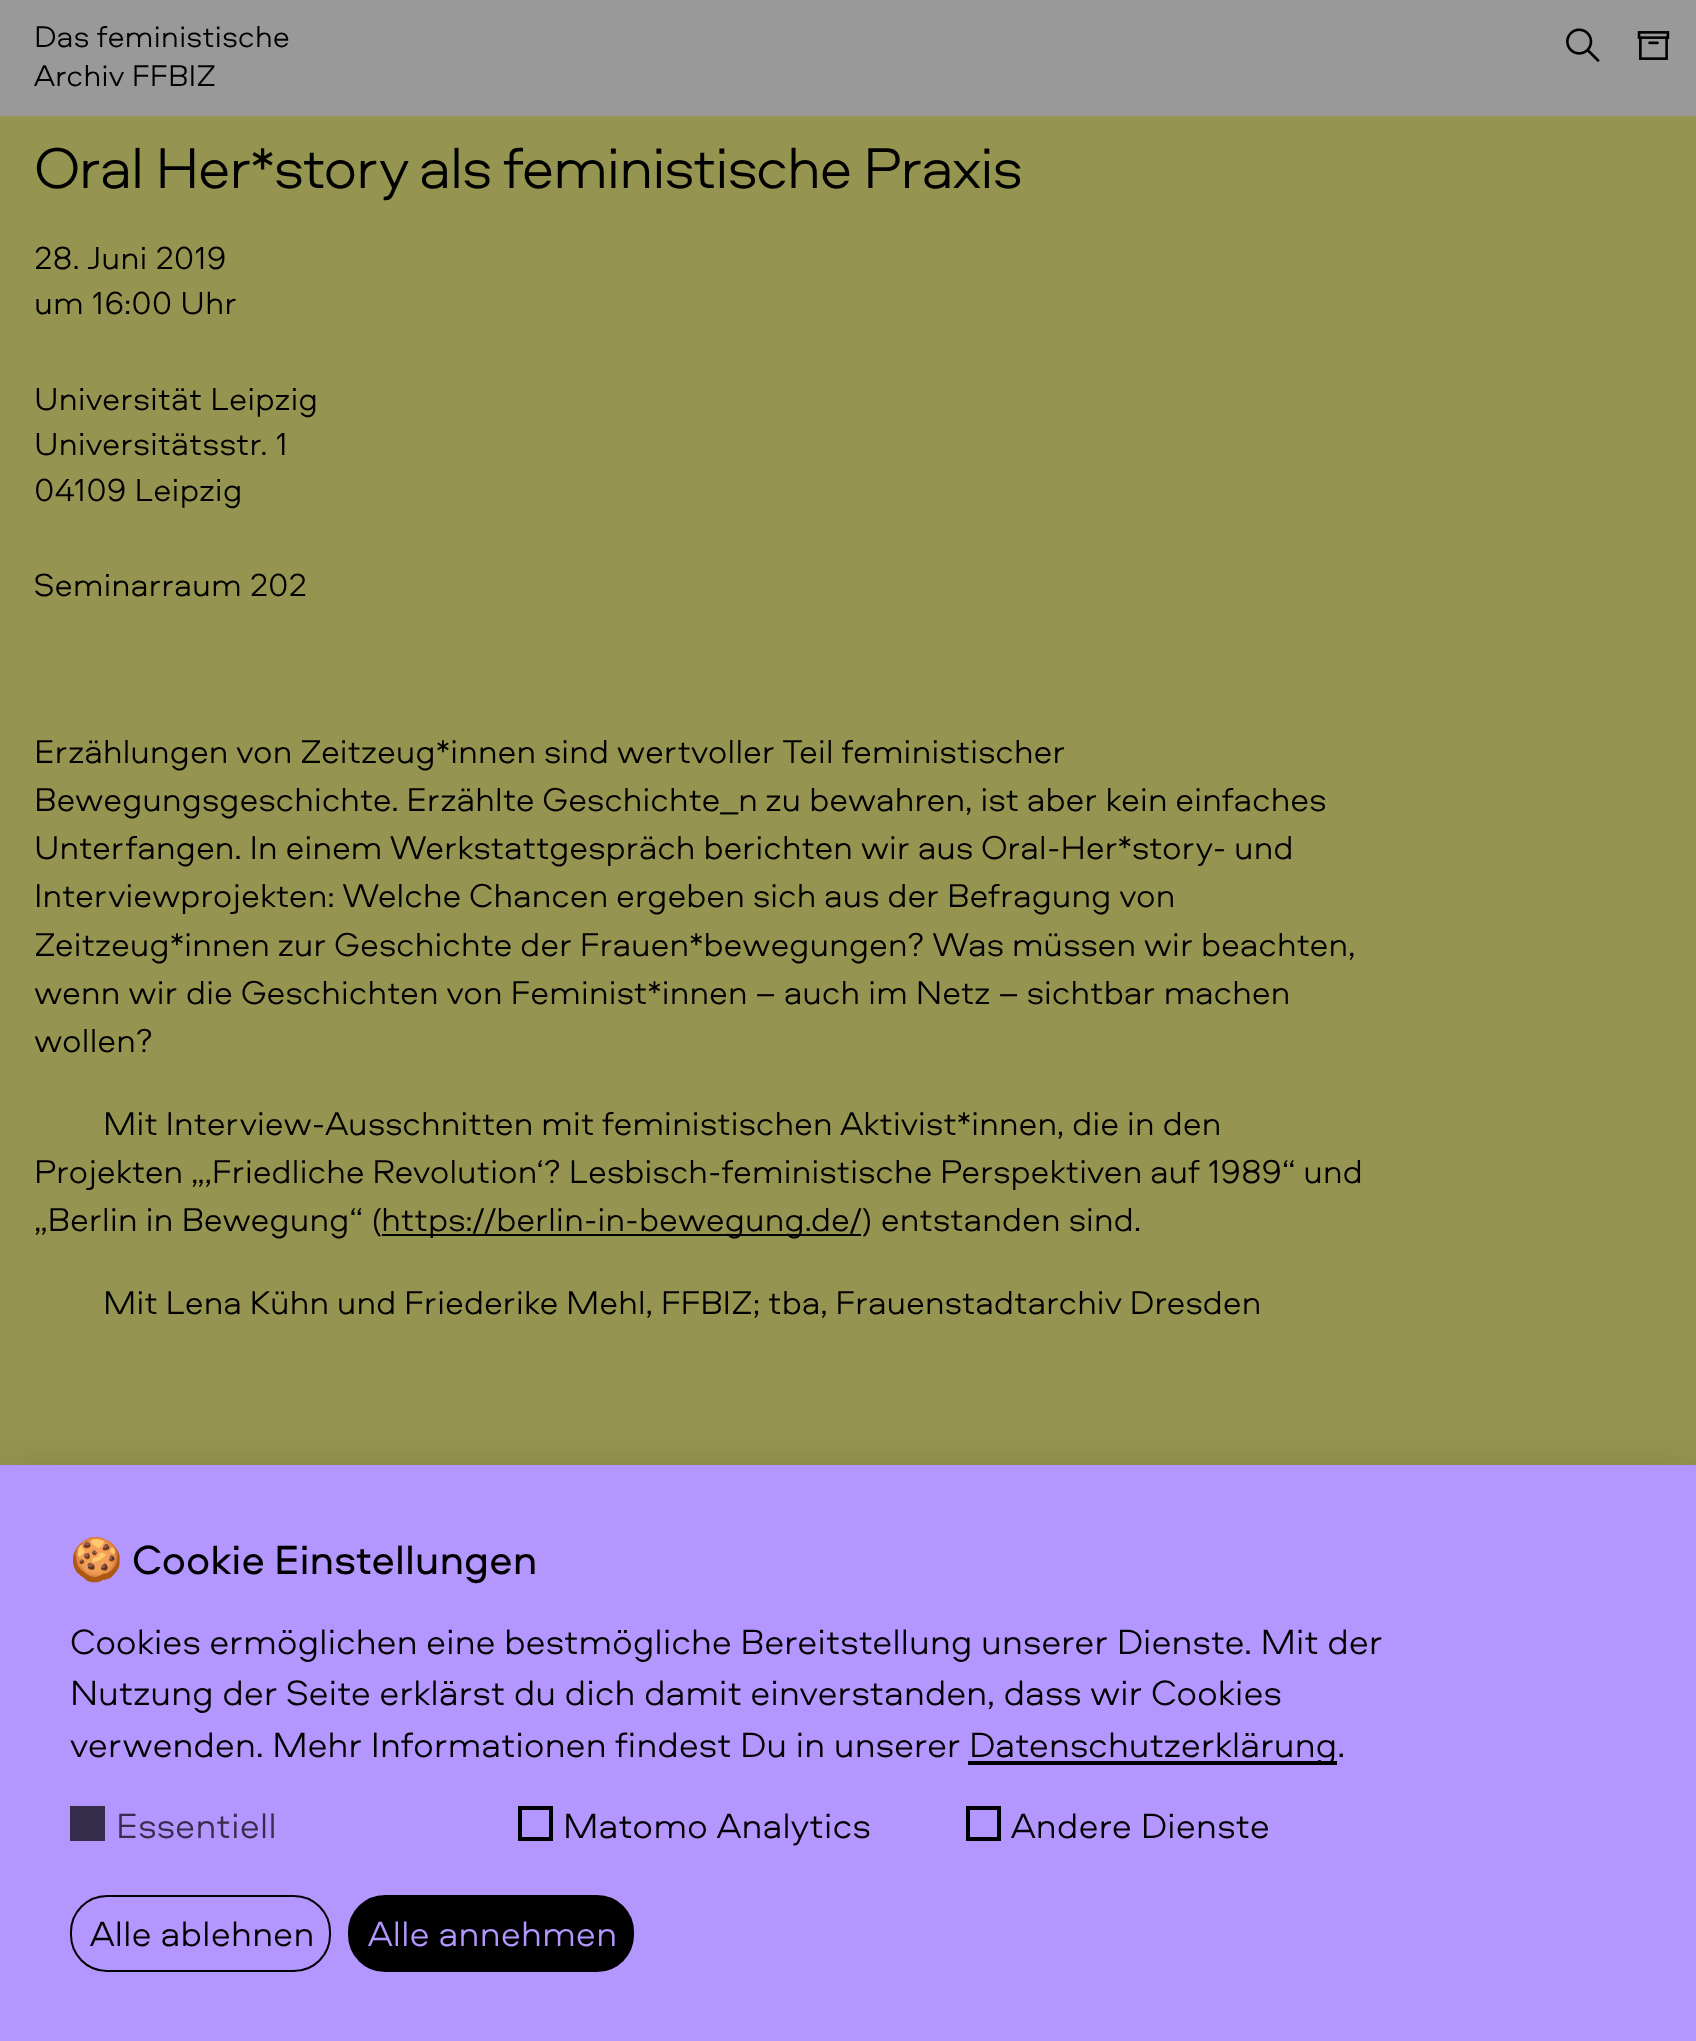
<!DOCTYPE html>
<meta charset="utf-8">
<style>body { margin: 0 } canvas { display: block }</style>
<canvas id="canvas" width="1696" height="2041"></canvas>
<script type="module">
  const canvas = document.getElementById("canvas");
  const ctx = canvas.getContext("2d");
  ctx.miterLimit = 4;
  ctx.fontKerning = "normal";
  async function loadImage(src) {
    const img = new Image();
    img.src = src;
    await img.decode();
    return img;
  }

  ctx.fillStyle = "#959450";
  ctx.fillRect(0, 0, 1696, 2041);
  ctx.fillStyle = "#999999";
  ctx.fillRect(0, 0, 1696, 116);
  ctx.font = "300 31.25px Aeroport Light";
  ctx.fillStyle = "#000000";
  ctx.fillText("Das feministische", 34, 47);
  ctx.fillText("Archiv FFBIZ", 34, 86);
  ctx.drawImage(await loadImage("img1.png"), 1566, 28, 34, 35);
  ctx.drawImage(await loadImage("img2.png"), 1637, 31, 33, 29);
  ctx.letterSpacing = "-1.8px";
  ctx.font = "300 60px Aeroport Light";
  ctx.fillText("Oral Her*story als feministische Praxis", 34, 188);
  ctx.letterSpacing = "0px";
  ctx.font = "300 33.25px Aeroport Light";
  ctx.fillText("28. Juni 2019", 34, 269);
  ctx.fillText("um 16:00 Uhr", 34, 314);
  ctx.fillText("Universität Leipzig", 34, 410);
  ctx.fillText("Universitätsstr. 1", 34, 455);
  ctx.fillText("04109 Leipzig", 34, 501);
  ctx.fillText("Seminarraum 202", 34, 596);
  ctx.letterSpacing = "-0.17px";
  ctx.wordSpacing = "-0.25px";
  ctx.font = "300 34.45px Aeroport Light";
  ctx.fillText("Erzählungen von Zeitzeug*innen sind wertvoller Teil feministischer", 34, 763);
  ctx.fillText("Bewegungsgeschichte. Erzählte Geschichte_n zu bewahren, ist aber kein einfaches", 34, 811);
  ctx.fillText("Unterfangen. In einem Werkstattgespräch berichten wir aus Oral-Her*story- und", 34, 859);
  ctx.fillText("Interviewprojekten: Welche Chancen ergeben sich aus der Befragung von", 34, 907);
  ctx.fillText("Zeitzeug*innen zur Geschichte der Frauen*bewegungen? Was müssen wir beachten,", 34, 956);
  ctx.wordSpacing = "0px";
  ctx.fillText("wenn wir die Geschichten von Feminist*innen – auch im Netz – sichtbar machen", 34, 1004);
  ctx.fillText("wollen?", 34, 1052);
  ctx.wordSpacing = "-0.25px";
  ctx.fillText("Mit Interview-Ausschnitten mit feministischen Aktivist*innen, die in den", 103, 1135);
  ctx.fillText("Projekten „,Friedliche Revolution‘? Lesbisch-feministische Perspektiven auf 1989“ und", 34, 1183);
  ctx.wordSpacing = "0px";
  ctx.fillText("„Berlin in Bewegung“ (", 34, 1231);
  ctx.fillRect(382, 1234, 479, 2);
  ctx.fillText("https://berlin-in-bewegung.de/) entstanden sind.", 381, 1231);
  ctx.wordSpacing = "-0.25px";
  ctx.fillText("Mit Lena Kühn und Friederike Mehl, FFBIZ; tba, Frauenstadtarchiv Dresden", 103, 1314);
  ctx.fillStyle = "rgba(0, 0, 0, 0.2)";
  ctx.filter = "blur(26px)";
  ctx.beginPath();
  ctx.rect(0, 1482, 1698, 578);
  ctx.fill();
  ctx.filter = "none";
  ctx.fillStyle = "#b496ff";
  ctx.fillRect(0, 1465, 1696, 576);
  ctx.letterSpacing = "-0.4px";
  ctx.wordSpacing = "0px";
  ctx.font = "42.4px Noto Color Emoji";
  ctx.fillStyle = "#000000";
  ctx.fillText("🍪", 70, 1574);
  ctx.font = "42.4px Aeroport";
  ctx.fillText("Cookie Einstellungen", 132, 1574);
  ctx.letterSpacing = "-0.18px";
  ctx.font = "300 36.65px Aeroport Light";
  ctx.fillText("Cookies ermöglichen eine bestmögliche Bereitstellung unserer Dienste. Mit der", 70, 1654);
  ctx.fillText("Nutzung der Seite erklärst du dich damit einverstanden, dass wir Cookies", 70, 1705);
  ctx.fillText("verwenden. Mehr Informationen findest Du in unserer", 70, 1757);
  ctx.fillRect(968, 1761, 369, 4);
  ctx.fillText("Datenschutzerklärung.", 969, 1757);
  ctx.fillStyle = "#362d4d";
  ctx.fillRect(70, 1806, 35, 35);
  ctx.letterSpacing = "0px";
  ctx.fillText("Essentiell", 116, 1838);
  ctx.strokeStyle = "#000000";
  ctx.lineWidth = 4;
  ctx.strokeRect(520, 1808, 31, 31);
  ctx.fillStyle = "#000000";
  ctx.fillText("Matomo Analytics", 563, 1838);
  ctx.strokeRect(968, 1808, 31, 31);
  ctx.fillText("Andere Dienste", 1011, 1838);
  ctx.beginPath();
  ctx.roundRect(71, 1896, 259, 75, 36);
  ctx.lineWidth = 2;
  ctx.stroke();
  ctx.fillText("Alle ablehnen", 90, 1946);
  ctx.beginPath();
  ctx.roundRect(349, 1896, 284, 75, 36);
  ctx.fill();
  ctx.stroke();
  ctx.fillStyle = "#b496ff";
  ctx.fillText("Alle annehmen", 368, 1946);
</script>
